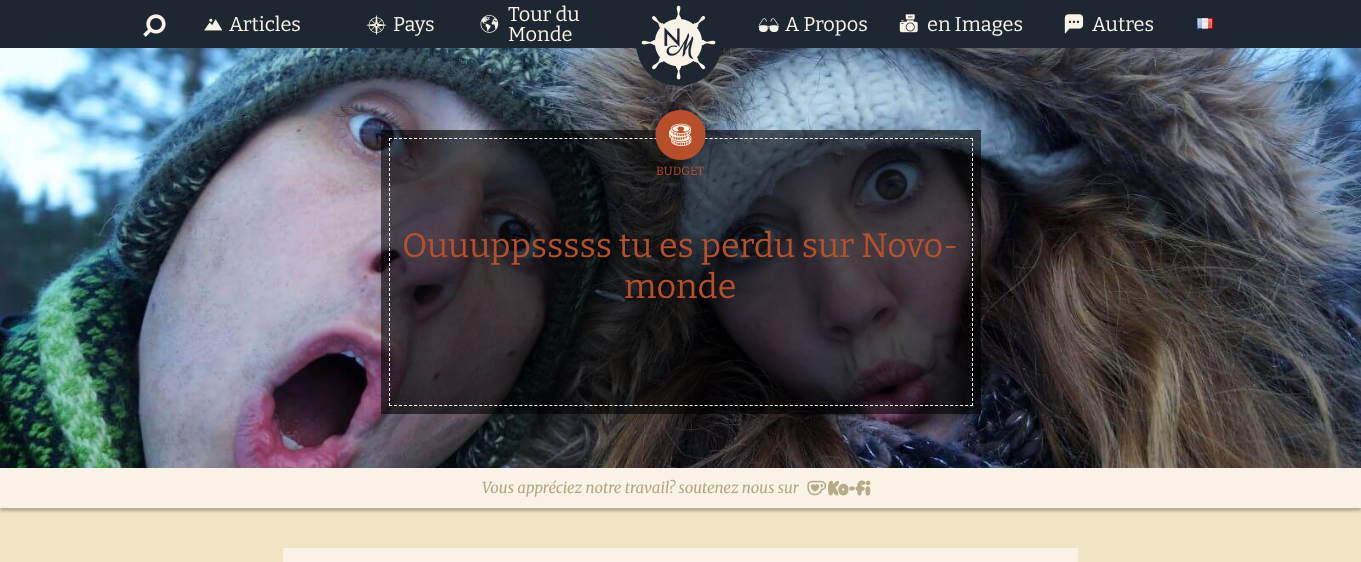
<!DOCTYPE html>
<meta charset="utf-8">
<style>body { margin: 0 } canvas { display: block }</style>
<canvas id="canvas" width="1361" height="562"></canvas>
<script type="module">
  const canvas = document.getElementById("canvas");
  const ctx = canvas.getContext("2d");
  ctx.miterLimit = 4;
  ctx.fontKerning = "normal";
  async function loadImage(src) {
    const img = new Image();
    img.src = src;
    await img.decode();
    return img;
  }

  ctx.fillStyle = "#f1e4c4";
  ctx.fillRect(0, 0, 1361, 562);
  ctx.fillStyle = "#1d2731";
  ctx.fillRect(0, 0, 1361, 48);
  ctx.drawImage(await loadImage("img1.png"), 143, 14, 23, 23);
  ctx.drawImage(await loadImage("img2.png"), 204, 18, 19, 13);
  ctx.font = "100 20px Bitter";
  ctx.fillStyle = "#f8f3e6";
  ctx.fillText("Articles", 229, 31);
  ctx.drawImage(await loadImage("img3.png"), 366, 15, 21, 20);
  ctx.fillText("Pays", 393, 31);
  ctx.drawImage(await loadImage("img4.png"), 480, 15, 19, 18);
  ctx.fillText("Tour du", 508, 21);
  ctx.fillText("Monde", 508, 41);
  ctx.drawImage(await loadImage("img10.png"), 0, 48, 1361, 420);
  ctx.fillStyle = "#1d2731";
  ctx.beginPath();
  ctx.arc(679, 43, 43, 0, Math.PI * 2);
  ctx.fill();
  ctx.drawImage(await loadImage("img5.png"), 641, 5, 75, 75);
  ctx.drawImage(await loadImage("img6.png"), 758, 18, 22, 15);
  ctx.fillStyle = "#f8f3e6";
  ctx.fillText("A Propos", 785, 31);
  ctx.drawImage(await loadImage("img7.png"), 899, 14, 19, 19);
  ctx.fillText("en Images", 927, 31);
  ctx.drawImage(await loadImage("img8.png"), 1064, 14, 20, 20);
  ctx.fillText("Autres", 1092, 31);
  ctx.drawImage(await loadImage("img9.png"), 1197, 18, 16, 11);
  ctx.fillStyle = "rgba(0, 0, 0, 0.6)";
  ctx.fillRect(381, 130, 600, 284);
  ctx.beginPath();
  ctx.moveTo(389, 138.5);
  ctx.lineTo(973, 138.5);
  ctx.strokeStyle = "#ffffff";
  ctx.setLineDash([3, 2.01]);
  ctx.stroke();
  ctx.drawImage(await loadImage("img11.png"), 655, 110, 51, 50);
  ctx.font = "100 12px Bitter";
  ctx.fillStyle = "#b74f2a";
  ctx.fillText("BUDGET", 656, 175);
  ctx.beginPath();
  ctx.moveTo(972.5, 138);
  ctx.lineTo(972.5, 406);
  ctx.setLineDash([3, 2]);
  ctx.stroke();
  ctx.beginPath();
  ctx.moveTo(389, 405.5);
  ctx.lineTo(973, 405.5);
  ctx.setLineDash([3, 2.01]);
  ctx.stroke();
  ctx.beginPath();
  ctx.moveTo(389.5, 138);
  ctx.lineTo(389.5, 406);
  ctx.setLineDash([3, 2]);
  ctx.stroke();
  ctx.font = "100 34px Bitter";
  ctx.fillText("Ouuuppsssss tu es perdu sur Novo-", 402, 257);
  ctx.fillText("monde", 624, 298);
  ctx.fillStyle = "#f8f3e6";
  ctx.fillRect(283, 548, 795, 14);
  ctx.fillStyle = "rgba(0, 0, 0, 0.25)";
  ctx.filter = "blur(1.5px)";
  ctx.beginPath();
  ctx.rect(0, 471, 1361, 40);
  ctx.fill();
  ctx.filter = "none";
  ctx.fillStyle = "#f8f3e6";
  ctx.fillRect(0, 468, 1361, 40);
  ctx.font = "italic 15px Merriweather";
  ctx.fillStyle = "#b4a681";
  ctx.fillText("Vous appréciez notre travail? soutenez nous sur", 482, 493);
  ctx.drawImage(await loadImage("img12.png"), 807, 480, 64, 16);
</script>
